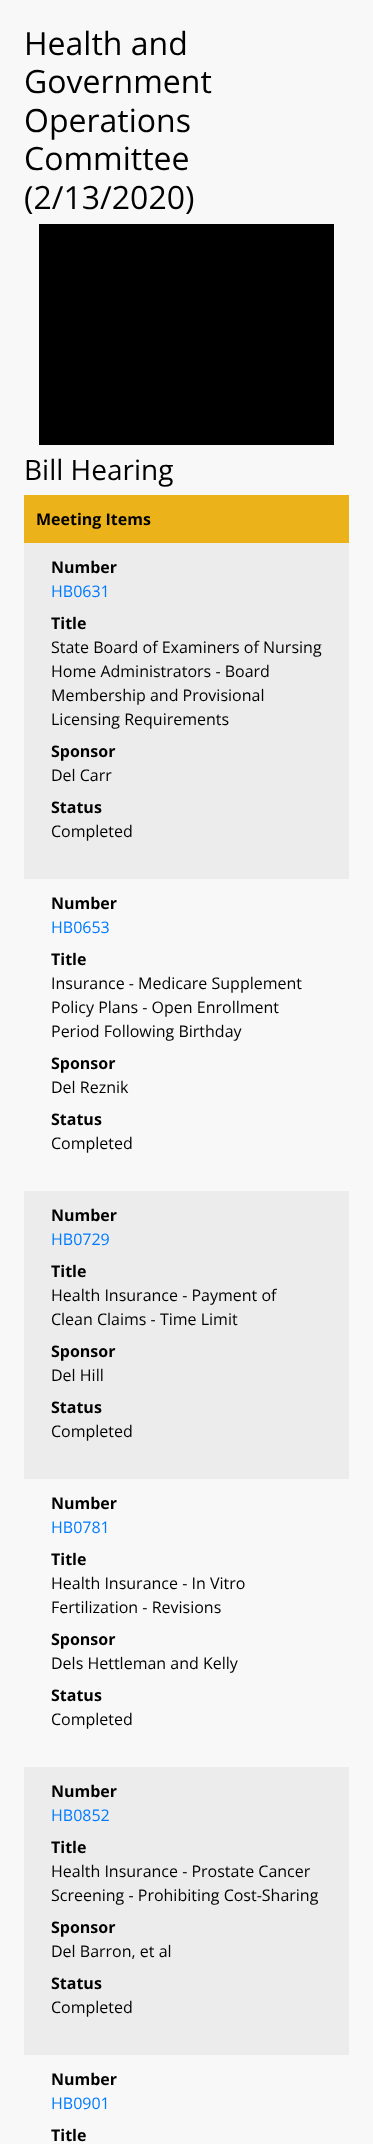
<!DOCTYPE html>
<meta charset="utf-8">
<style>body { margin: 0 } canvas { display: block }</style>
<canvas id="canvas" width="373" height="2144"></canvas>
<script type="module">
  const canvas = document.getElementById("canvas");
  const ctx = canvas.getContext("2d");
  ctx.miterLimit = 4;
  ctx.fontKerning = "normal";

  ctx.fillStyle = "#f8f8f8";
  ctx.fillRect(0, 0, 373, 2144);
  ctx.font = "32px Open Sans";
  ctx.fillStyle = "#000000";
  ctx.fillText("Health and", 24, 55);
  ctx.fillText("Government", 24, 93);
  ctx.fillText("Operations", 24, 132);
  ctx.fillText("Committee", 24, 170);
  ctx.fillText("(2/13/2020)", 24, 209);
  ctx.fillRect(39, 224, 295, 221);
  ctx.font = "28px Open Sans";
  ctx.fillText("Bill Hearing", 24, 480);
  ctx.fillStyle = "#ebb219";
  ctx.fillRect(24, 495, 325, 48);
  ctx.font = "bold 16px Open Sans";
  ctx.fillStyle = "#000000";
  ctx.fillText("Meeting Items", 36, 525);
  ctx.fillStyle = "#ececec";
  ctx.fillRect(24, 543, 325, 336);
  ctx.fillStyle = "#000000";
  ctx.fillText("Number", 51, 573);
  ctx.font = "16px Open Sans";
  ctx.fillStyle = "#007bff";
  ctx.fillText("HB0631", 51, 597);
  ctx.font = "bold 16px Open Sans";
  ctx.fillStyle = "#000000";
  ctx.fillText("Title", 51, 629);
  ctx.font = "16px Open Sans";
  ctx.fillText("State Board of Examiners of Nursing", 51, 653);
  ctx.fillText("Home Administrators - Board", 51, 677);
  ctx.fillText("Membership and Provisional", 51, 701);
  ctx.fillText("Licensing Requirements", 51, 725);
  ctx.font = "bold 16px Open Sans";
  ctx.fillText("Sponsor", 51, 757);
  ctx.font = "16px Open Sans";
  ctx.fillText("Del Carr", 51, 781);
  ctx.font = "bold 16px Open Sans";
  ctx.fillText("Status", 51, 813);
  ctx.font = "16px Open Sans";
  ctx.fillText("Completed", 51, 837);
  ctx.font = "bold 16px Open Sans";
  ctx.fillText("Number", 51, 909);
  ctx.font = "16px Open Sans";
  ctx.fillStyle = "#007bff";
  ctx.fillText("HB0653", 51, 933);
  ctx.font = "bold 16px Open Sans";
  ctx.fillStyle = "#000000";
  ctx.fillText("Title", 51, 965);
  ctx.font = "16px Open Sans";
  ctx.fillText("Insurance - Medicare Supplement", 51, 989);
  ctx.fillText("Policy Plans - Open Enrollment", 51, 1013);
  ctx.fillText("Period Following Birthday", 51, 1037);
  ctx.font = "bold 16px Open Sans";
  ctx.fillText("Sponsor", 51, 1069);
  ctx.font = "16px Open Sans";
  ctx.fillText("Del Reznik", 51, 1093);
  ctx.font = "bold 16px Open Sans";
  ctx.fillText("Status", 51, 1125);
  ctx.font = "16px Open Sans";
  ctx.fillText("Completed", 51, 1149);
  ctx.fillStyle = "#ececec";
  ctx.fillRect(24, 1191, 325, 288);
  ctx.font = "bold 16px Open Sans";
  ctx.fillStyle = "#000000";
  ctx.fillText("Number", 51, 1221);
  ctx.font = "16px Open Sans";
  ctx.fillStyle = "#007bff";
  ctx.fillText("HB0729", 51, 1245);
  ctx.font = "bold 16px Open Sans";
  ctx.fillStyle = "#000000";
  ctx.fillText("Title", 51, 1277);
  ctx.font = "16px Open Sans";
  ctx.fillText("Health Insurance - Payment of", 51, 1301);
  ctx.fillText("Clean Claims - Time Limit", 51, 1325);
  ctx.font = "bold 16px Open Sans";
  ctx.fillText("Sponsor", 51, 1357);
  ctx.font = "16px Open Sans";
  ctx.fillText("Del Hill", 51, 1381);
  ctx.font = "bold 16px Open Sans";
  ctx.fillText("Status", 51, 1413);
  ctx.font = "16px Open Sans";
  ctx.fillText("Completed", 51, 1437);
  ctx.font = "bold 16px Open Sans";
  ctx.fillText("Number", 51, 1509);
  ctx.font = "16px Open Sans";
  ctx.fillStyle = "#007bff";
  ctx.fillText("HB0781", 51, 1533);
  ctx.font = "bold 16px Open Sans";
  ctx.fillStyle = "#000000";
  ctx.fillText("Title", 51, 1565);
  ctx.font = "16px Open Sans";
  ctx.fillText("Health Insurance - In Vitro", 51, 1589);
  ctx.fillText("Fertilization - Revisions", 51, 1613);
  ctx.font = "bold 16px Open Sans";
  ctx.fillText("Sponsor", 51, 1645);
  ctx.font = "16px Open Sans";
  ctx.fillText("Dels Hettleman and Kelly", 51, 1669);
  ctx.font = "bold 16px Open Sans";
  ctx.fillText("Status", 51, 1701);
  ctx.font = "16px Open Sans";
  ctx.fillText("Completed", 51, 1725);
  ctx.fillStyle = "#ececec";
  ctx.fillRect(24, 1767, 325, 288);
  ctx.font = "bold 16px Open Sans";
  ctx.fillStyle = "#000000";
  ctx.fillText("Number", 51, 1797);
  ctx.font = "16px Open Sans";
  ctx.fillStyle = "#007bff";
  ctx.fillText("HB0852", 51, 1821);
  ctx.font = "bold 16px Open Sans";
  ctx.fillStyle = "#000000";
  ctx.fillText("Title", 51, 1853);
  ctx.font = "16px Open Sans";
  ctx.fillText("Health Insurance - Prostate Cancer", 51, 1877);
  ctx.fillText("Screening - Prohibiting Cost-Sharing", 51, 1901);
  ctx.font = "bold 16px Open Sans";
  ctx.fillText("Sponsor", 51, 1933);
  ctx.font = "16px Open Sans";
  ctx.fillText("Del Barron, et al", 51, 1957);
  ctx.font = "bold 16px Open Sans";
  ctx.fillText("Status", 51, 1989);
  ctx.font = "16px Open Sans";
  ctx.fillText("Completed", 51, 2013);
  ctx.font = "bold 16px Open Sans";
  ctx.fillText("Number", 51, 2085);
  ctx.font = "16px Open Sans";
  ctx.fillStyle = "#007bff";
  ctx.fillText("HB0901", 51, 2109);
  ctx.font = "bold 16px Open Sans";
  ctx.fillStyle = "#000000";
  ctx.fillText("Title", 51, 2141);
</script>
